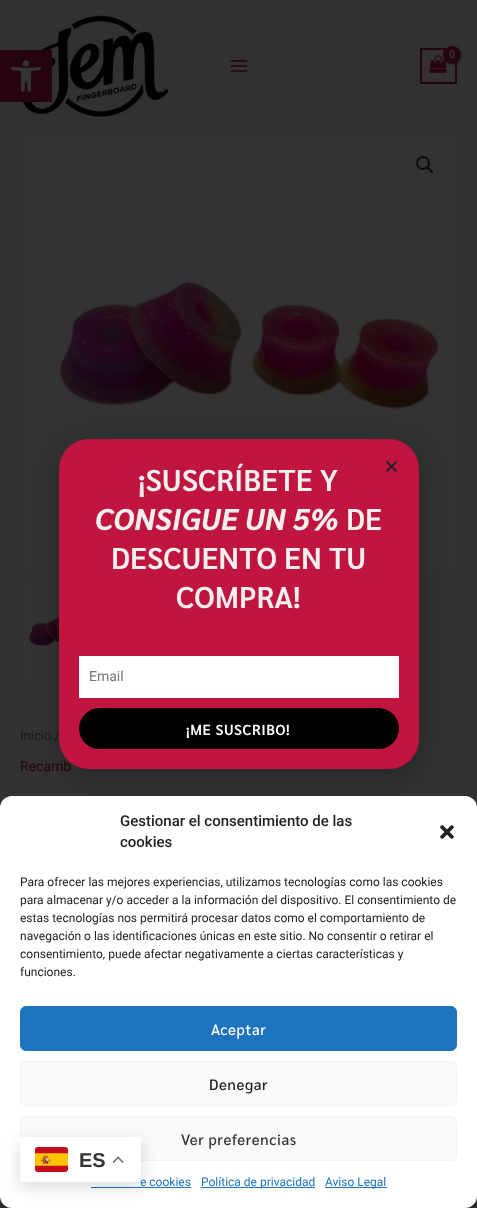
<!DOCTYPE html>
<meta charset="utf-8">
<style>body { margin: 0 } canvas { display: block }</style>
<canvas id="canvas" width="477" height="1208"></canvas>
<script type="module">
  const canvas = document.getElementById("canvas");
  const ctx = canvas.getContext("2d");
  ctx.miterLimit = 4;
  ctx.fontKerning = "normal";
  async function loadImage(src) {
    const img = new Image();
    img.src = src;
    await img.decode();
    return img;
  }

  ctx.fillStyle = "#323232";
  ctx.fillRect(0, 0, 477, 1208);
  ctx.drawImage(await loadImage("img2.png"), 23, 15, 146, 102);
  ctx.fillStyle = "#26040d";
  ctx.fillRect(0, 50, 52, 52);
  ctx.drawImage(await loadImage("img1.png"), 11, 60, 30, 32);
  ctx.fillStyle = "#2d2e30";
  ctx.fillRect(0, 132, 477, 1);
  ctx.strokeStyle = "#26040d";
  ctx.lineWidth = 2;
  ctx.strokeRect(421, 49, 35, 34);
  ctx.drawImage(await loadImage("img3.png"), 429, 55, 18, 18);
  ctx.fillStyle = "rgba(0, 0, 0, 0.3)";
  ctx.filter = "blur(1.5px)";
  ctx.beginPath();
  ctx.roundRect(444, 47, 18, 18, 9);
  ctx.fill();
  ctx.filter = "none";
  ctx.fillStyle = "#26040d";
  ctx.beginPath();
  ctx.arc(452, 55, 9, 0, Math.PI * 2);
  ctx.fill();
  ctx.font = "bold 11px Roboto";
  ctx.fillStyle = "#333333";
  ctx.fillText("0", 449, 58);
  ctx.drawImage(await loadImage("img4.png"), 230, 60, 18, 12);
  ctx.drawImage(await loadImage("img5.png"), 20, 133, 437, 437);
  ctx.beginPath();
  ctx.arc(423, 163, 6, 0, Math.PI * 2);
  ctx.strokeStyle = "#0a0d11";
  ctx.stroke();
  ctx.fillStyle = "#0a0d11";
  ctx.beginPath();
  ctx.moveTo(427, 167);
  ctx.bezierCurveTo(428.5, 166, 430, 168.5, 430.5, 169.5);
  ctx.bezierCurveTo(431.5, 170, 434, 171.5, 433, 173);
  ctx.bezierCurveTo(431.5, 174, 430, 171.5, 429.5, 170.5);
  ctx.bezierCurveTo(428.5, 170, 426, 168.5, 427, 167);
  ctx.closePath();
  ctx.fill();
  ctx.drawImage(await loadImage("img6.png"), 20, 584, 39, 99);
  ctx.font = "13px Roboto";
  ctx.fillStyle = "#181818";
  ctx.fillText("Inicio /", 20, 740);
  ctx.font = "14px Roboto";
  ctx.fillStyle = "#26040d";
  ctx.fillText("Recamb", 20, 771);
  ctx.fillStyle = "rgba(0, 0, 0, 0.2)";
  ctx.filter = "blur(11.5px)";
  ctx.beginPath();
  ctx.roundRect(58, 444, 366, 336, 33);
  ctx.fill();
  ctx.filter = "none";
  ctx.fillStyle = "#c0153f";
  ctx.beginPath();
  ctx.roundRect(59, 439, 360, 330, 30);
  ctx.fill();
  ctx.font = "600 30px Sarabun";
  ctx.fillStyle = "#efefef";
  ctx.fillText("¡SUSCRÍBETE Y", 138, 491);
  ctx.font = "italic bold 30px Sarabun";
  ctx.fillText("CONSIGUE UN 5%", 95, 530);
  ctx.font = "600 30px Sarabun";
  ctx.fillText("DE", 346, 530);
  ctx.fillText("DESCUENTO EN TU", 111, 569);
  ctx.fillText("COMPRA!", 176, 608);
  ctx.fillStyle = "#ffffff";
  ctx.fillRect(79, 656, 320, 42);
  ctx.font = "14px Roboto";
  ctx.fillStyle = "#767575";
  ctx.fillText("Email", 89, 681);
  ctx.fillStyle = "#000000";
  ctx.beginPath();
  ctx.roundRect(79, 708, 320, 41, 20.5);
  ctx.fill();
  ctx.letterSpacing = "0.6px";
  ctx.font = "600 14.5px Sarabun";
  ctx.fillStyle = "#ffffff";
  ctx.fillText("¡ME SUSCRIBO!", 186, 735);
  ctx.drawImage(await loadImage("img7.png"), 386, 461, 11, 11);
  ctx.fillStyle = "rgba(0, 0, 0, 0.23)";
  ctx.filter = "blur(3px)";
  ctx.beginPath();
  ctx.roundRect(0, 802, 477, 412, 12);
  ctx.fill();
  ctx.filter = "none";
  ctx.fillStyle = "#ffffff";
  ctx.beginPath();
  ctx.roundRect(0, 796, 477, 412, 12);
  ctx.fill();
  ctx.letterSpacing = "0px";
  ctx.font = "500 15px Roboto";
  ctx.fillStyle = "#222222";
  ctx.fillText("Gestionar el consentimiento de las", 120, 826);
  ctx.fillText("cookies", 120, 847);
  ctx.drawImage(await loadImage("img8.png"), 440, 825, 14, 14);
  ctx.font = "12px Roboto";
  ctx.fillText("Para ofrecer las mejores experiencias, utilizamos tecnologías como las cookies", 20, 886);
  ctx.fillText("para almacenar y/o acceder a la información del dispositivo. El consentimiento de", 20, 904);
  ctx.fillText("estas tecnologías nos permitirá procesar datos como el comportamiento de", 20, 922);
  ctx.fillText("navegación o las identificaciones únicas en este sitio. No consentir o retirar el", 20, 940);
  ctx.fillText("consentimiento, puede afectar negativamente a ciertas características y", 20, 958);
  ctx.fillText("funciones.", 20, 976);
  ctx.fillStyle = "#1e73be";
  ctx.beginPath();
  ctx.roundRect(20.5, 1006.5, 436, 44, 5.5);
  ctx.fill();
  ctx.strokeStyle = "#1e73be";
  ctx.lineWidth = 1;
  ctx.stroke();
  ctx.letterSpacing = "0.6px";
  ctx.font = "500 15px Sarabun";
  ctx.fillStyle = "#ffffff";
  ctx.fillText("Aceptar", 211, 1035);
  ctx.fillStyle = "#f9f9f9";
  ctx.beginPath();
  ctx.roundRect(20.5, 1061.5, 436, 44, 5.5);
  ctx.fill();
  ctx.strokeStyle = "#f2f2f2";
  ctx.stroke();
  ctx.fillStyle = "#222222";
  ctx.fillText("Denegar", 209, 1090);
  ctx.fillStyle = "#f9f9f9";
  ctx.beginPath();
  ctx.roundRect(20.5, 1116.5, 436, 44, 5.5);
  ctx.fill();
  ctx.stroke();
  ctx.fillStyle = "#333333";
  ctx.fillText("Ver preferencias", 181, 1145);
  ctx.letterSpacing = "0px";
  ctx.font = "12px Roboto";
  ctx.fillStyle = "#1e73be";
  ctx.fillText("e cookies", 140, 1186);
  ctx.fillRect(91, 1187, 100, 1);
  ctx.fillRect(201, 1187, 114, 1);
  ctx.fillText("Política de privacidad", 201, 1186);
  ctx.fillRect(325, 1187, 62, 1);
  ctx.fillText("Aviso Legal", 325, 1186);
  ctx.fillStyle = "rgba(0, 0, 0, 0.15)";
  ctx.filter = "blur(7.5px)";
  ctx.beginPath();
  ctx.roundRect(20, 1142, 121, 45, 2);
  ctx.fill();
  ctx.filter = "none";
  ctx.fillStyle = "#ffffff";
  ctx.beginPath();
  ctx.roundRect(20, 1137, 121, 45, 2);
  ctx.fill();
  ctx.drawImage(await loadImage("img9.png"), 35, 1147, 33, 25);
  ctx.font = "bold 20px Liberation Sans";
  ctx.fillStyle = "#333333";
  ctx.fillText("ES", 79, 1167);
  ctx.drawImage(await loadImage("img10.png"), 113, 1156, 11, 7);
</script>
